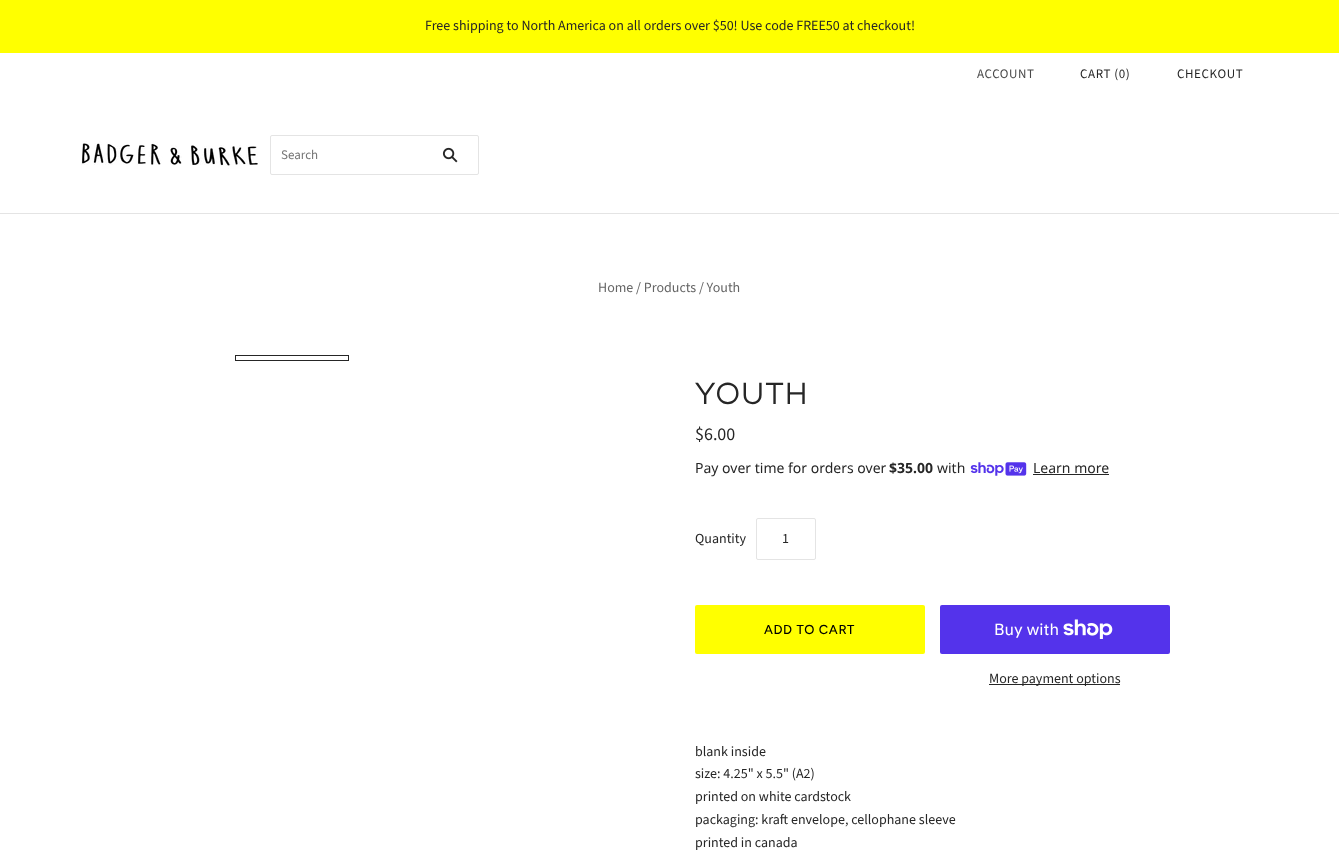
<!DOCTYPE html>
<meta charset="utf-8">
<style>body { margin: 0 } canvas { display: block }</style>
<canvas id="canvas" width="1339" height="854"></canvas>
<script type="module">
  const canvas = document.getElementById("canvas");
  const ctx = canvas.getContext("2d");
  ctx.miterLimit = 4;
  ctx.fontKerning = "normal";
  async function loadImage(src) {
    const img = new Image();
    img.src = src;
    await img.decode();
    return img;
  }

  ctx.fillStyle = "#ffffff";
  ctx.fillRect(0, 0, 1339, 854);
  ctx.fillStyle = "#ffff00";
  ctx.fillRect(0, 0, 1339, 53);
  ctx.font = "14px Source Sans Pro";
  ctx.fillStyle = "#262626";
  ctx.fillText("Free shipping to North America on all orders over $50! Use code FREE50 at checkout!", 425, 30);
  ctx.fillStyle = "#e4e4e4";
  ctx.fillRect(0, 213, 1339, 1);
  ctx.letterSpacing = "0.6px";
  ctx.font = "13px Source Sans Pro";
  ctx.fillStyle = "#494949";
  ctx.fillText("ACCOUNT", 977, 78);
  ctx.fillStyle = "#262626";
  ctx.fillText("CART (0)", 1080, 78);
  ctx.fillText("CHECKOUT", 1177, 78);
  ctx.drawImage(await loadImage("img1.png"), 81, 141, 177, 28);
  ctx.beginPath();
  ctx.roundRect(270.5, 135.5, 208, 39, 1.5);
  ctx.strokeStyle = "#e4e4e4";
  ctx.stroke();
  ctx.letterSpacing = "0px";
  ctx.fillStyle = "#757575";
  ctx.fillText("Search", 281, 159);
  ctx.drawImage(await loadImage("img2.png"), 442, 147, 16, 16);
  ctx.font = "14px Source Sans Pro";
  ctx.fillStyle = "#656565";
  ctx.fillText("Home / Products / Youth", 598, 292);
  ctx.strokeStyle = "#262626";
  ctx.strokeRect(235.5, 355.5, 113, 5);
  ctx.letterSpacing = "1.5px";
  ctx.font = "32px Questrial";
  ctx.fillStyle = "#262626";
  ctx.fillText("YOUTH", 695, 404);
  ctx.letterSpacing = "0px";
  ctx.font = "18px Source Sans Pro";
  ctx.fillText("$6.00", 695, 440);
  ctx.font = "14px Noto Sans";
  ctx.fillText("Pay over time for orders over", 695, 473);
  ctx.font = "bold 14px Noto Sans";
  ctx.fillText("$35.00", 889, 473);
  ctx.font = "14px Noto Sans";
  ctx.fillText("with", 937, 473);
  ctx.drawImage(await loadImage("img3.png"), 970, 462, 57, 14);
  ctx.fillText("Learn more", 1033, 473);
  ctx.fillRect(1033, 474, 76, 1);
  ctx.font = "14px Source Sans Pro";
  ctx.fillText("Quantity", 695, 543);
  ctx.beginPath();
  ctx.roundRect(756.5, 518.5, 59, 41, 1.5);
  ctx.strokeStyle = "#e4e4e4";
  ctx.stroke();
  ctx.fillText("1", 782, 543);
  ctx.fillStyle = "#ffff00";
  ctx.beginPath();
  ctx.roundRect(695, 605, 230, 49, 2);
  ctx.fill();
  ctx.letterSpacing = "0.6px";
  ctx.font = "500 13px Figtree";
  ctx.fillStyle = "#000000";
  ctx.fillText("ADD TO CART", 764, 634);
  ctx.fillStyle = "#5433eb";
  ctx.beginPath();
  ctx.roundRect(940, 605, 230, 49, 2);
  ctx.fill();
  ctx.letterSpacing = "0px";
  ctx.font = "16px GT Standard";
  ctx.fillStyle = "#ffffff";
  ctx.fillText("Buy with", 994, 635);
  ctx.drawImage(await loadImage("img4.png"), 1063, 619, 50, 20);
  ctx.fillStyle = "#262626";
  ctx.fillRect(989, 684, 131, 1);
  ctx.font = "14px Source Sans Pro";
  ctx.fillText("More payment options", 989, 683);
  ctx.fillText("blank inside", 695, 756);
  ctx.fillText("size: 4.25\" x 5.5\" (A2)", 695, 778);
  ctx.fillText("printed on white cardstock", 695, 801);
  ctx.fillText("packaging: kraft envelope, cellophane sleeve", 695, 824);
  ctx.fillText("printed in canada", 695, 847);
</script>
